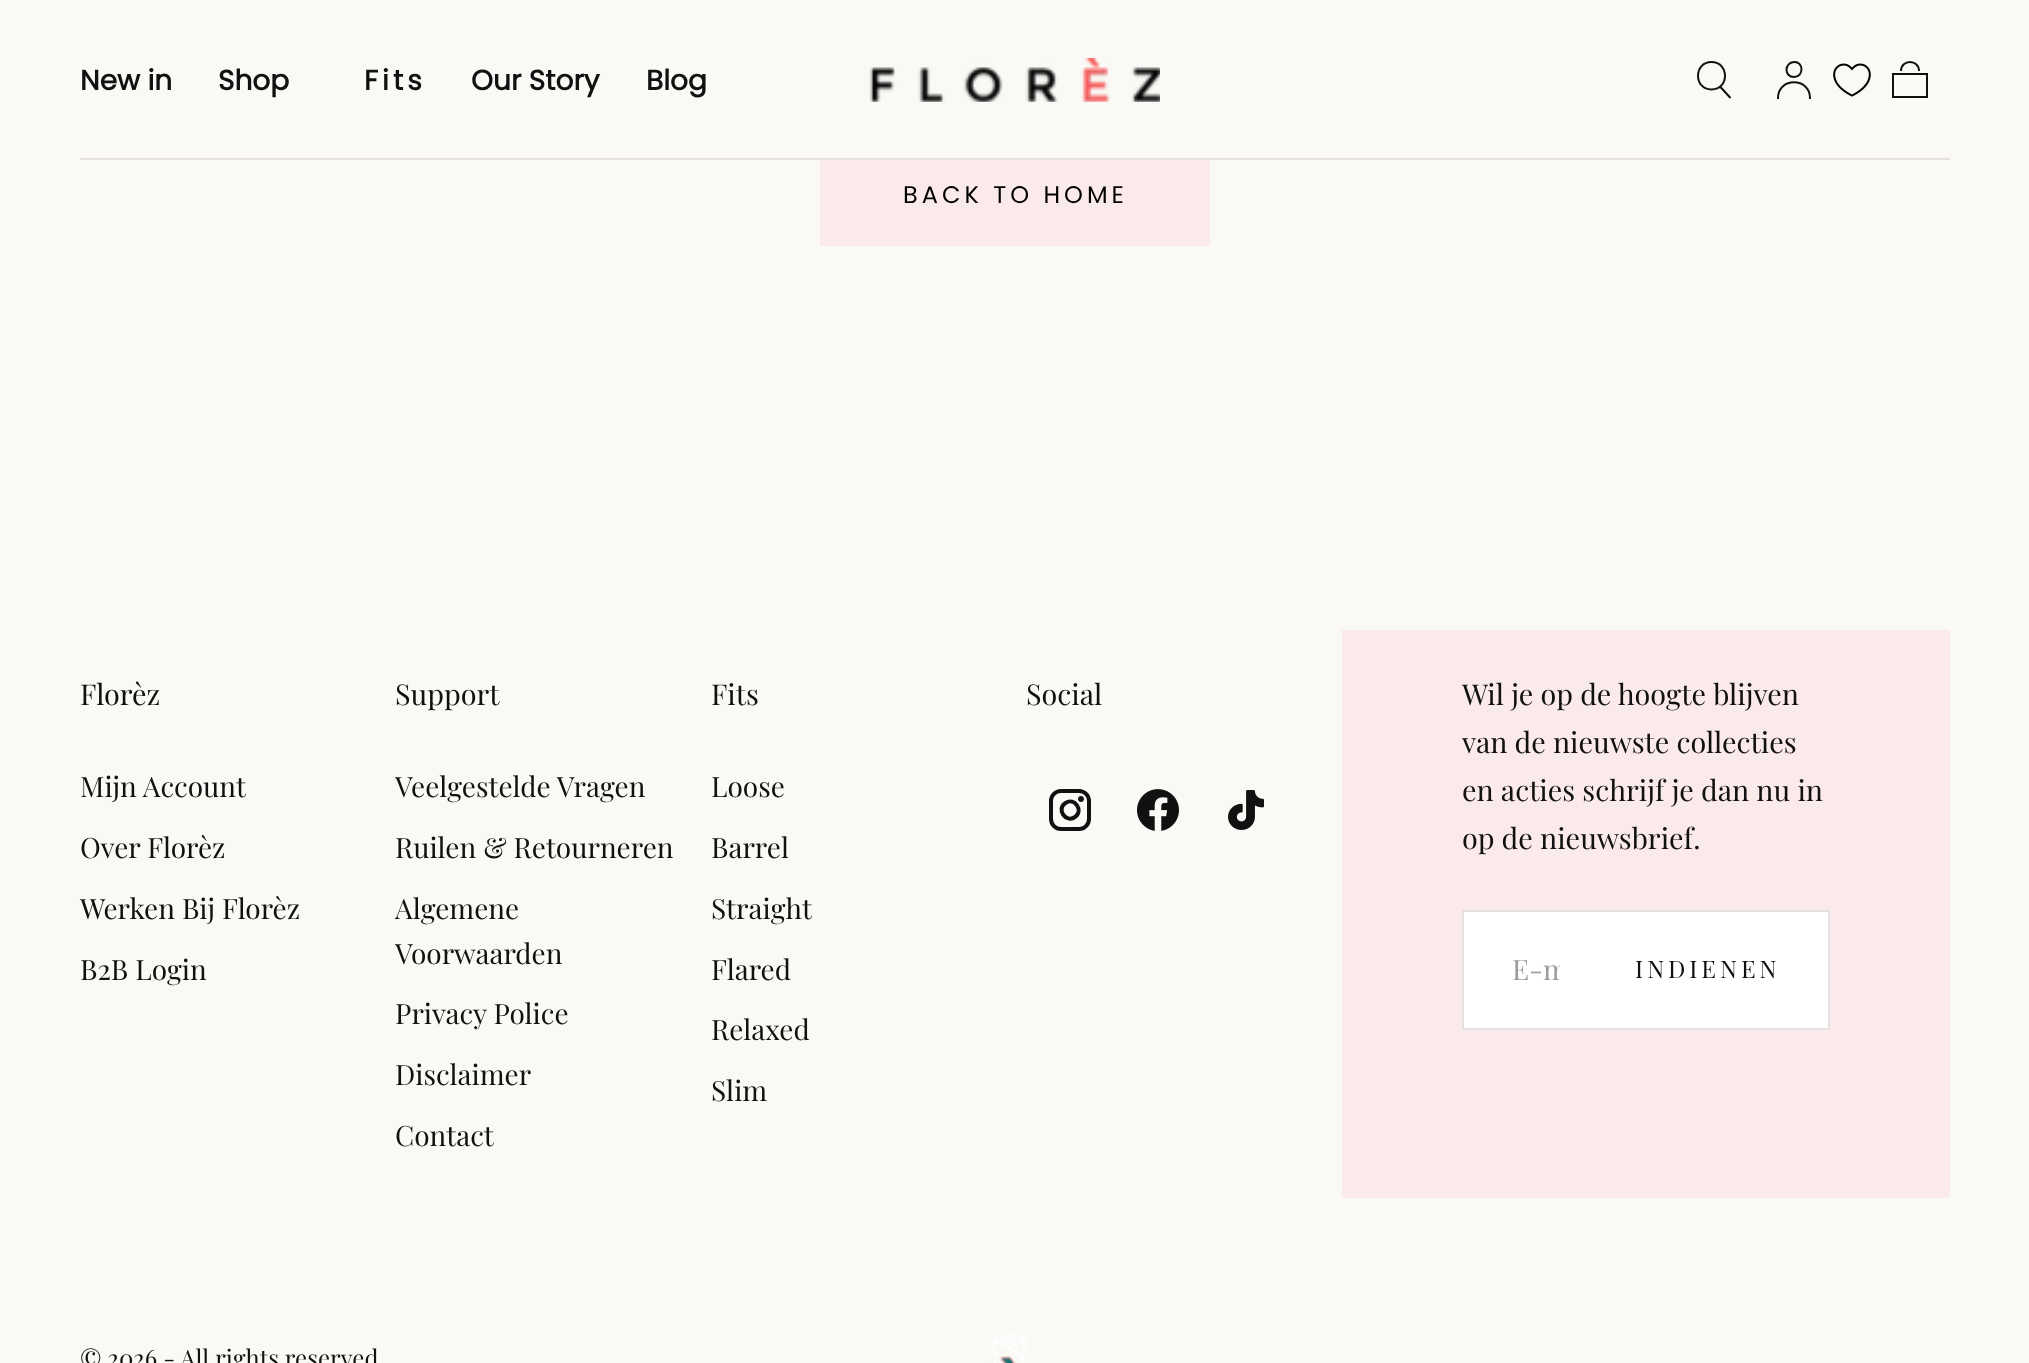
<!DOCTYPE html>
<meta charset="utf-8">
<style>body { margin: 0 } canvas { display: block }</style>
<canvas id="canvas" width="2029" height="1363"></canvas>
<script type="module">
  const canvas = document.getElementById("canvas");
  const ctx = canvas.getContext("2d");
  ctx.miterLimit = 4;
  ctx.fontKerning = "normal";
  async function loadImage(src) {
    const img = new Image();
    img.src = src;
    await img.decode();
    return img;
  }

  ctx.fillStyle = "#faf9f6";
  ctx.fillRect(0, 0, 2029, 1363);
  ctx.font = "bold 28px Poppins";
  ctx.fillStyle = "#111111";
  ctx.fillText("New in", 80, 90);
  ctx.fillText("Shop", 218, 90);
  ctx.letterSpacing = "4px";
  ctx.fillText("Fits", 364, 90);
  ctx.letterSpacing = "0px";
  ctx.fillText("Our Story", 471, 90);
  ctx.fillText("Blog", 646, 90);
  ctx.drawImage(await loadImage("img1.png"), 870, 58, 290, 44);
  ctx.beginPath();
  ctx.moveTo(1719.5, 86);
  ctx.lineTo(1730.5, 98);
  ctx.moveTo(1711.5, 89.5);
  ctx.bezierCurveTo(1729.5, 89.5, 1729.5, 62, 1711.5, 62);
  ctx.bezierCurveTo(1693.5, 62, 1693.5, 89.5, 1711.5, 89.5);
  ctx.closePath();
  ctx.strokeStyle = "#111111";
  ctx.lineWidth = 2;
  ctx.stroke();
  ctx.beginPath();
  ctx.moveTo(1778, 98);
  ctx.bezierCurveTo(1778, 77, 1810, 77, 1810, 98);
  ctx.moveTo(1794, 77);
  ctx.bezierCurveTo(1804, 77, 1804, 61.5, 1794, 62);
  ctx.bezierCurveTo(1784, 62.5, 1784, 77, 1794, 77);
  ctx.closePath();
  ctx.lineCap = "square";
  ctx.stroke();
  ctx.drawImage(await loadImage("img2.png"), 1833, 63, 38, 34);
  ctx.beginPath();
  ctx.moveTo(1927, 97);
  ctx.lineTo(1893, 97);
  ctx.lineTo(1893, 74);
  ctx.lineTo(1927, 74);
  ctx.closePath();
  ctx.moveTo(1919, 71);
  ctx.bezierCurveTo(1919, 59, 1901, 59, 1901, 71);
  ctx.lineCap = "butt";
  ctx.stroke();
  ctx.fillStyle = "#e6e2e1";
  ctx.fillRect(80, 158, 1870, 2);
  ctx.fillStyle = "#fbeaea";
  ctx.fillRect(820, 160, 390, 86);
  ctx.letterSpacing = "4px";
  ctx.font = "24px Poppins";
  ctx.fillStyle = "#000000";
  ctx.fillText("BACK TO HOME", 903, 203);
  ctx.letterSpacing = "0px";
  ctx.font = "28.75px Playfair Display";
  ctx.fillStyle = "#111111";
  ctx.fillText("Florèz", 80, 705);
  ctx.font = "28px Playfair Display";
  ctx.fillText("Mijn Account", 80, 797);
  ctx.fillText("Over Florèz", 80, 858);
  ctx.fillText("Werken Bij Florèz", 80, 919);
  ctx.fillText("B2B Login", 80, 980);
  ctx.font = "28.75px Playfair Display";
  ctx.fillText("Support", 395, 705);
  ctx.font = "28px Playfair Display";
  ctx.fillText("Veelgestelde Vragen", 395, 797);
  ctx.fillText("Ruilen & Retourneren", 395, 858);
  ctx.fillText("Algemene", 395, 919);
  ctx.fillText("Voorwaarden", 395, 964);
  ctx.fillText("Privacy Police", 395, 1024);
  ctx.fillText("Disclaimer", 395, 1085);
  ctx.fillText("Contact", 395, 1146);
  ctx.font = "28.75px Playfair Display";
  ctx.fillText("Fits", 711, 705);
  ctx.font = "28px Playfair Display";
  ctx.fillText("Loose", 711, 797);
  ctx.fillText("Barrel", 711, 858);
  ctx.fillText("Straight", 711, 919);
  ctx.fillText("Flared", 711, 980);
  ctx.fillText("Relaxed", 711, 1040);
  ctx.fillText("Slim", 711, 1101);
  ctx.font = "28.75px Playfair Display";
  ctx.fillText("Social", 1026, 705);
  ctx.beginPath();
  ctx.roundRect(1051, 791, 38, 38, 10);
  ctx.lineWidth = 4;
  ctx.stroke();
  ctx.beginPath();
  ctx.moveTo(1081, 802);
  ctx.bezierCurveTo(1077, 802, 1077, 796, 1081, 796);
  ctx.bezierCurveTo(1085, 796, 1085, 802, 1081, 802);
  ctx.closePath();
  ctx.fill();
  ctx.beginPath();
  ctx.moveTo(1065.5, 803);
  ctx.bezierCurveTo(1074.5, 797, 1084, 810.5, 1075, 817);
  ctx.bezierCurveTo(1065.5, 823.5, 1056, 809, 1065.5, 803);
  ctx.closePath();
  ctx.stroke();
  ctx.drawImage(await loadImage("img3.png"), 1137, 789, 42, 42);
  ctx.drawImage(await loadImage("img4.png"), 1228, 790, 36, 40);
  ctx.fillStyle = "#fbeaea";
  ctx.fillRect(1342, 630, 608, 568);
  ctx.fillStyle = "#111111";
  ctx.fillText("Wil je op de hoogte blijven", 1462, 705);
  ctx.fillText("van de nieuwste collecties", 1462, 753);
  ctx.fillText("en acties schrijf je dan nu in", 1462, 801);
  ctx.fillText("op de nieuwsbrief.", 1462, 849);
  ctx.fillStyle = "#ffffff";
  ctx.beginPath();
  ctx.rect(1463, 911, 366, 118);
  ctx.fill();
  ctx.strokeStyle = "#e6e2e1";
  ctx.lineWidth = 2;
  ctx.stroke();
  ctx.save();
  ctx.beginPath();
  ctx.rect(1512, 950, 48, 38);
  ctx.clip();
  ctx.font = "28px Playfair Display";
  ctx.fillStyle = "#9e9a99";
  ctx.fillText("E-m", 1512, 980);
  ctx.restore();
  ctx.letterSpacing = "4px";
  ctx.font = "24px Playfair Display";
  ctx.fillStyle = "#111111";
  ctx.fillText("INDIENEN", 1635, 978);
  ctx.letterSpacing = "0px";
  ctx.fillText("© 2026 - All rights reserved", 80, 1367);
  ctx.drawImage(await loadImage("img5.png"), 990, 1333, 38, 30);
</script>
